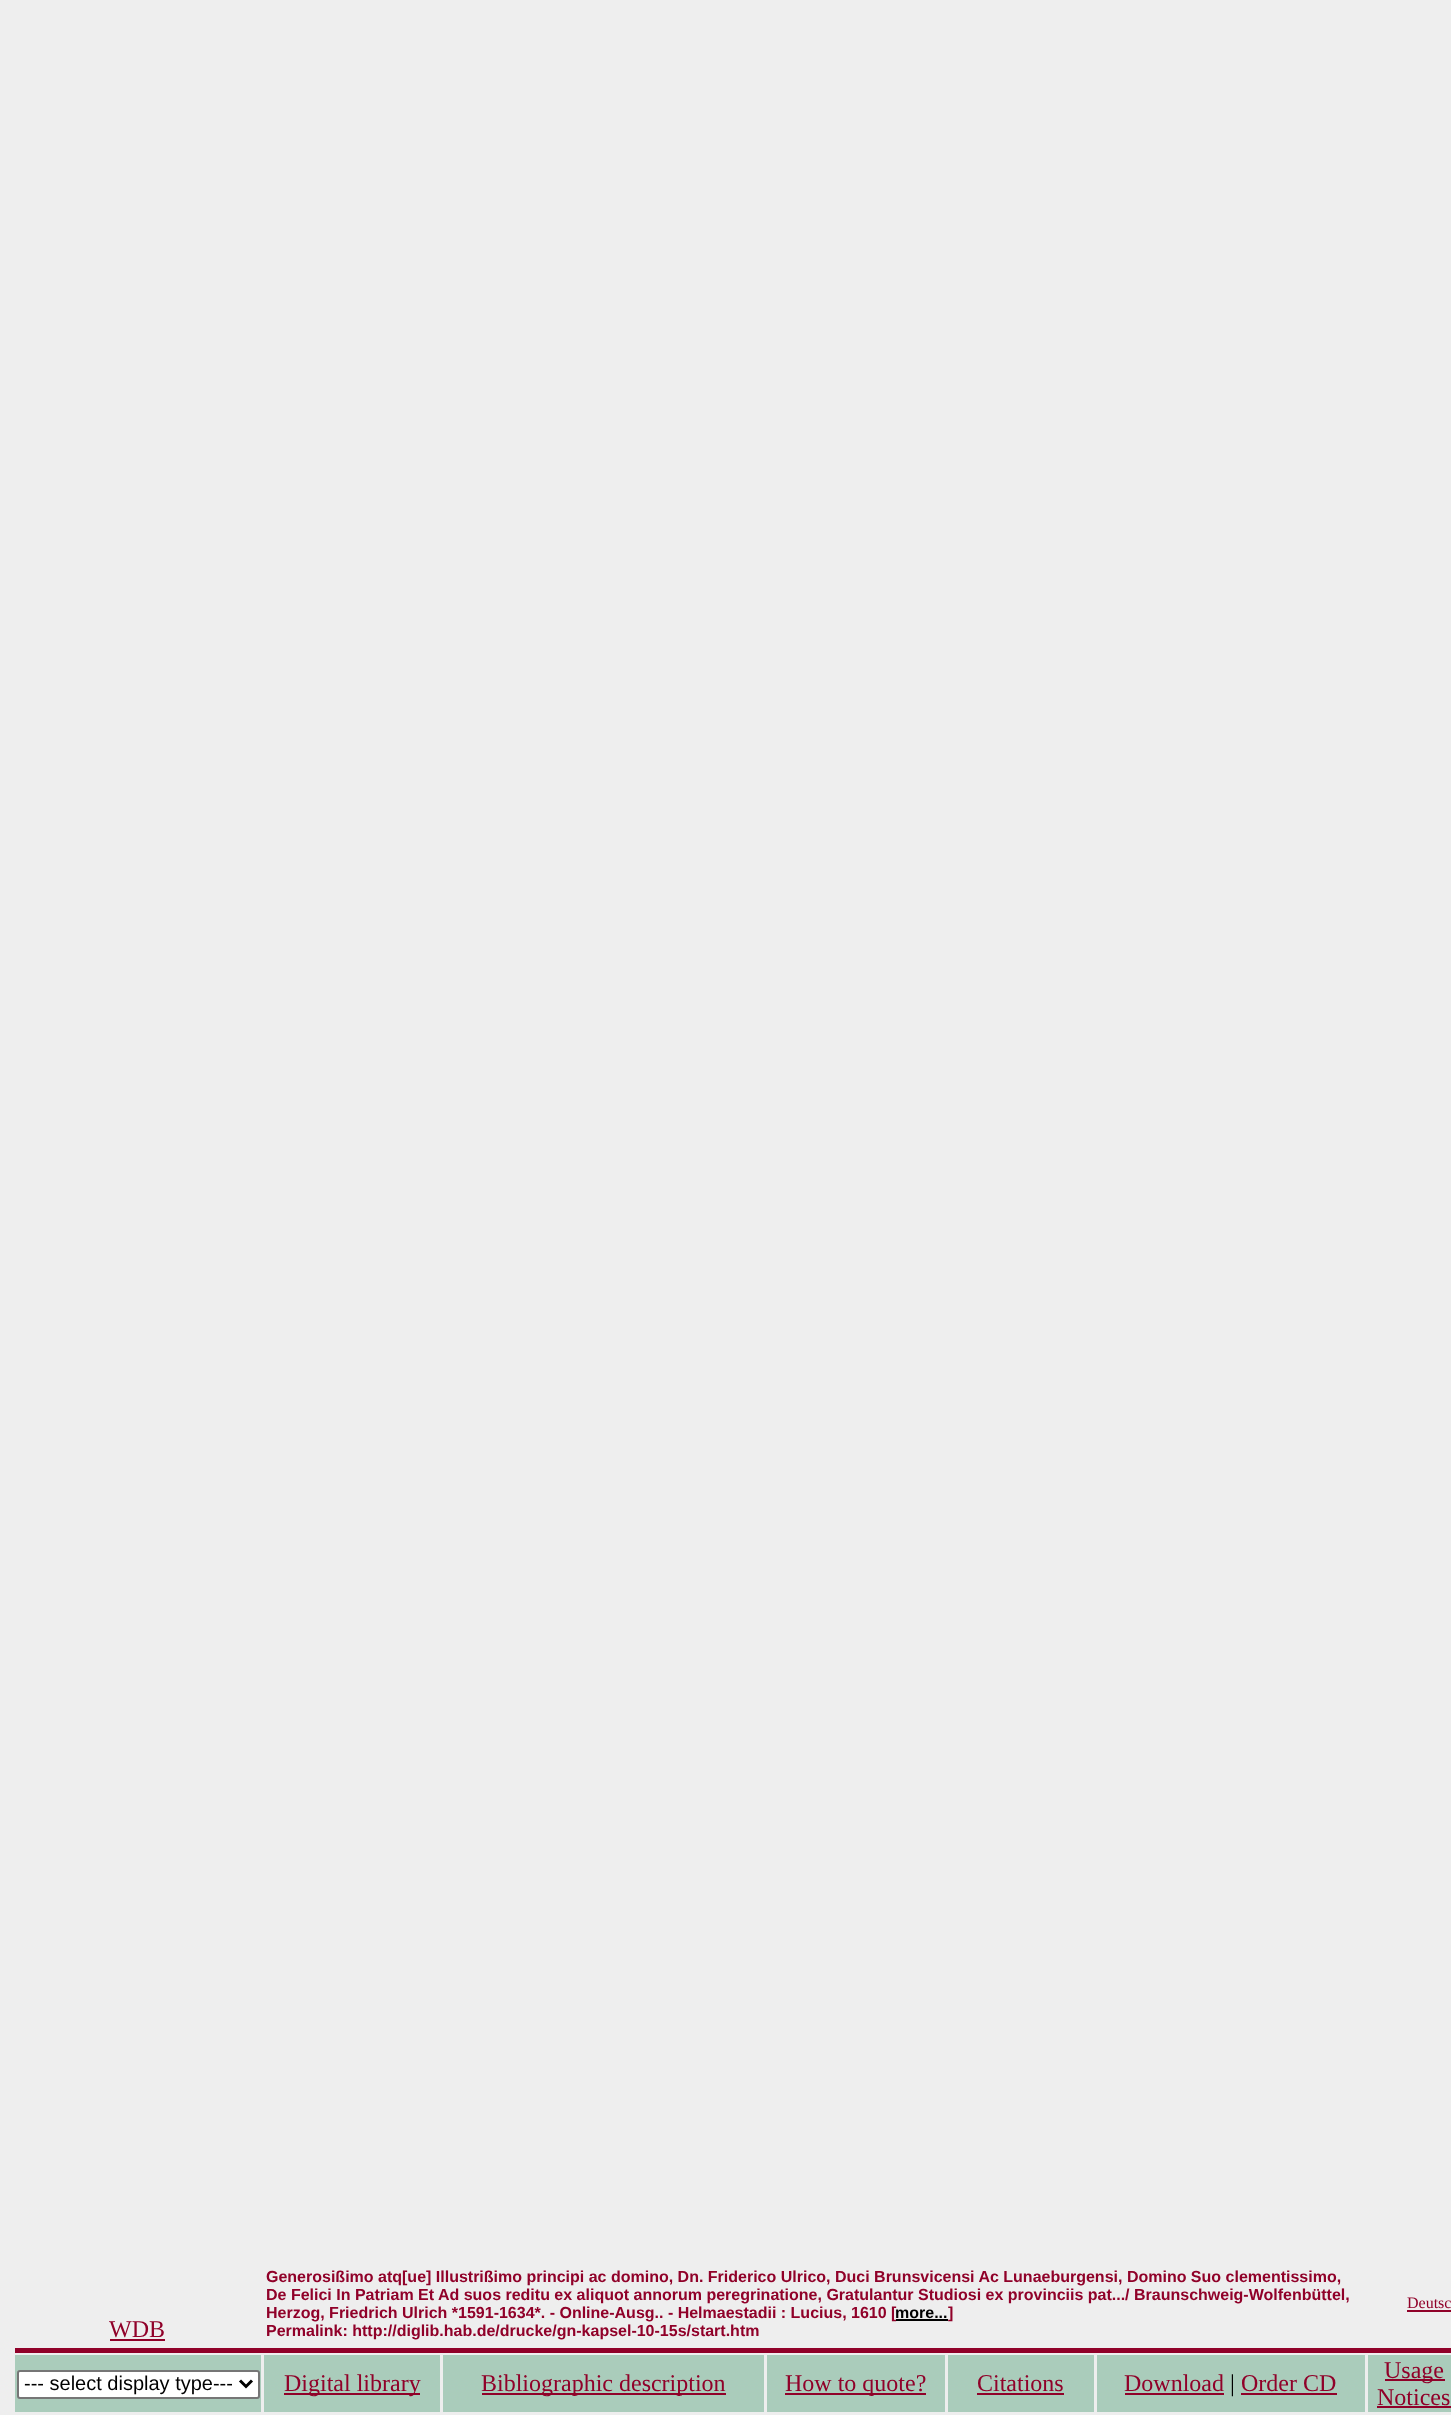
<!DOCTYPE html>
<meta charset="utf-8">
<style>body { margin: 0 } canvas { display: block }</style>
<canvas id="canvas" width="1451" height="2415"></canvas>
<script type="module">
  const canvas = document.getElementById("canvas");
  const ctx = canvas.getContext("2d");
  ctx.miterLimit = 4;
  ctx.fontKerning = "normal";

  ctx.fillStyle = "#eeeeee";
  ctx.fillRect(0, 0, 1451, 2415);
  ctx.font = "bold 16px Liberation Sans";
  ctx.fillStyle = "#900129";
  ctx.fillText("Generosißimo atq[ue] Illustrißimo principi ac domino, Dn. Friderico Ulrico, Duci Brunsvicensi Ac Lunaeburgensi, Domino Suo clementissimo,", 266, 2282);
  ctx.fillText("De Felici In Patriam Et Ad suos reditu ex aliquot annorum peregrinatione, Gratulantur Studiosi ex provinciis pat.../ Braunschweig-Wolfenbüttel,", 266, 2300);
  ctx.fillText("Herzog, Friedrich Ulrich *1591-1634*. - Online-Ausg.. - Helmaestadii : Lucius, 1610 [", 266, 2318);
  ctx.fillStyle = "#000000";
  ctx.fillText("more...", 895, 2318);
  ctx.fillRect(896, 2319, 52, 2);
  ctx.fillStyle = "#900129";
  ctx.fillText("]", 948, 2318);
  ctx.fillText("Permalink: http://diglib.hab.de/drucke/gn-kapsel-10-15s/start.htm", 266, 2336);
  ctx.font = "16px Liberation Serif";
  ctx.fillText("Deutsc", 1407, 2308);
  ctx.fillRect(1407, 2310, 44, 2);
  ctx.font = "24px Liberation Serif";
  ctx.fillText("WDB", 109, 2337);
  ctx.fillRect(110, 2339, 55, 2);
  ctx.fillRect(15, 2348, 1436, 5);
  ctx.fillStyle = "#aaccbb";
  ctx.fillRect(15, 2355, 246, 57);
  ctx.fillStyle = "#ffffff";
  ctx.beginPath();
  ctx.roundRect(18, 2371, 241, 27, 2);
  ctx.fill();
  ctx.strokeStyle = "#767676";
  ctx.lineWidth = 2;
  ctx.stroke();
  ctx.beginPath();
  ctx.moveTo(240, 2380.5);
  ctx.lineTo(246, 2386.5);
  ctx.lineTo(252, 2380.5);
  ctx.strokeStyle = "#000000";
  ctx.lineWidth = 3;
  ctx.stroke();
  ctx.font = "20px Liberation Sans";
  ctx.fillStyle = "#000000";
  ctx.fillText("--- select display type---", 24, 2390);
  ctx.fillStyle = "#aaccbb";
  ctx.fillRect(264, 2355, 176, 57);
  ctx.fillStyle = "#900129";
  ctx.fillRect(284, 2393, 136, 2);
  ctx.font = "24px Liberation Serif";
  ctx.fillText("Digital library", 284, 2391);
  ctx.fillStyle = "#aaccbb";
  ctx.fillRect(443, 2355, 321, 57);
  ctx.fillStyle = "#900129";
  ctx.fillRect(482, 2393, 244, 2);
  ctx.fillText("Bibliographic description", 481, 2391);
  ctx.fillStyle = "#aaccbb";
  ctx.fillRect(767, 2355, 178, 57);
  ctx.fillStyle = "#900129";
  ctx.fillRect(785, 2393, 141, 2);
  ctx.fillText("How to quote?", 785, 2391);
  ctx.fillStyle = "#aaccbb";
  ctx.fillRect(948, 2355, 146, 57);
  ctx.fillStyle = "#900129";
  ctx.fillText("Citations", 977, 2391);
  ctx.fillRect(977, 2393, 87, 2);
  ctx.fillStyle = "#aaccbb";
  ctx.fillRect(1097, 2355, 268, 57);
  ctx.fillStyle = "#900129";
  ctx.fillText("Download", 1124, 2391);
  ctx.fillRect(1125, 2393, 99, 2);
  ctx.fillStyle = "#000000";
  ctx.fillText("|", 1230, 2391);
  ctx.fillStyle = "#900129";
  ctx.fillText("Order CD", 1241, 2391);
  ctx.fillRect(1241, 2393, 96, 2);
  ctx.fillStyle = "#aaccbb";
  ctx.fillRect(1368, 2355, 83, 57);
  ctx.fillStyle = "#900129";
  ctx.fillRect(1385, 2379, 60, 2);
  ctx.fillText("Usage", 1384, 2378);
  ctx.fillText("Notices", 1377, 2405);
  ctx.fillRect(1377, 2406, 74, 2);
</script>
